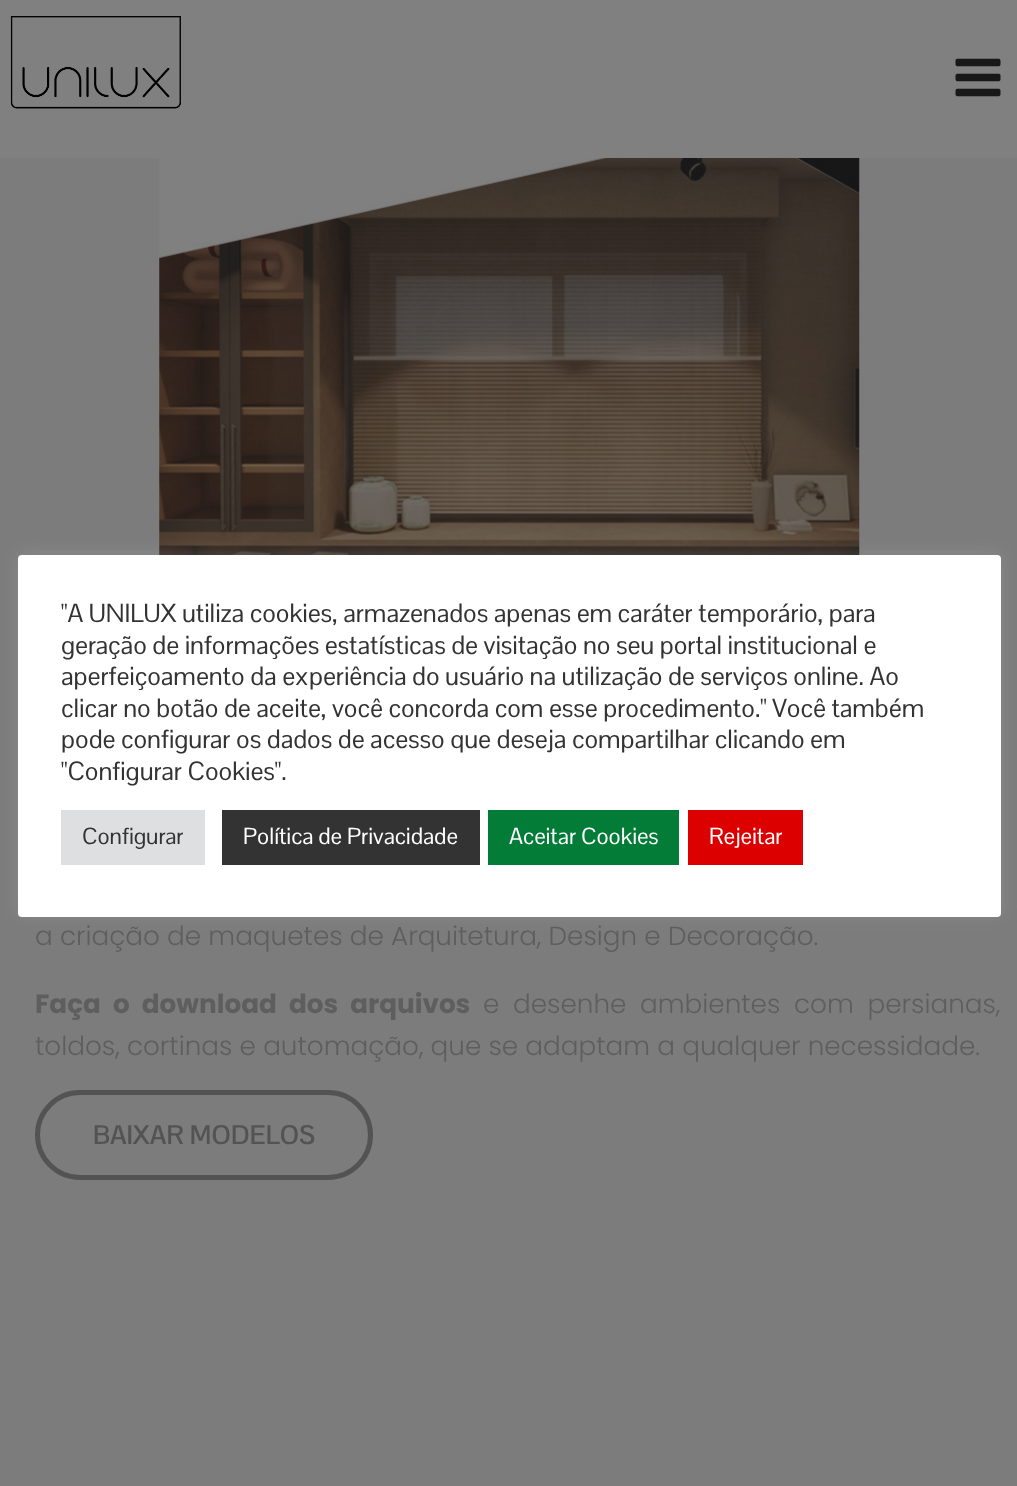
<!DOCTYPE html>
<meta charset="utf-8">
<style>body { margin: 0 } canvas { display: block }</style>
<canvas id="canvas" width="1017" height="1486"></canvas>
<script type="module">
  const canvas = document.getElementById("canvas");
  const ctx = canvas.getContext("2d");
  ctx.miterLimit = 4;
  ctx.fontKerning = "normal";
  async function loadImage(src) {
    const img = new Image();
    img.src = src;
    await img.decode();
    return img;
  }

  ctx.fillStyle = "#7c7c7c";
  ctx.fillRect(0, 0, 1017, 1486);
  ctx.drawImage(await loadImage("img3.png"), 159, 158, 701, 397);
  ctx.fillStyle = "rgba(172, 171, 171, 0.3)";
  ctx.filter = "blur(9px)";
  ctx.beginPath();
  ctx.roundRect(18, 553, 983, 362, 4);
  ctx.fill();
  ctx.filter = "none";
  ctx.fillStyle = "#ffffff";
  ctx.beginPath();
  ctx.roundRect(18, 555, 983, 362, 4);
  ctx.fill();
  ctx.font = "25.65px Pontano Sans";
  ctx.fillStyle = "#333333";
  ctx.fillText("\"A UNILUX utiliza cookies, armazenados apenas em caráter temporário, para", 61, 622);
  ctx.fillText("geração de informações estatísticas de visitação no seu portal institucional e", 61, 654);
  ctx.fillText("aperfeiçoamento da experiência do usuário na utilização de serviços online. Ao", 61, 685);
  ctx.fillText("clicar no botão de aceite, você concorda com esse procedimento.\" Você também", 61, 717);
  ctx.fillText("pode configurar os dados de acesso que deseja compartilhar clicando em", 61, 748);
  ctx.fillText("\"Configurar Cookies\".", 61, 780);
  ctx.fillStyle = "#dedfe0";
  ctx.fillRect(61, 810, 144, 55);
  ctx.font = "22.75px Pontano Sans";
  ctx.fillStyle = "#333333";
  ctx.fillText("Configurar", 82, 844);
  ctx.fillRect(222, 810, 258, 55);
  ctx.fillStyle = "#ffffff";
  ctx.fillText("Política de Privacidade", 243, 844);
  ctx.fillStyle = "#027c37";
  ctx.fillRect(488, 810, 191, 55);
  ctx.fillStyle = "#ffffff";
  ctx.fillText("Aceitar Cookies", 509, 844);
  ctx.fillStyle = "#dd0000";
  ctx.fillRect(688, 810, 115, 55);
  ctx.fillStyle = "#ffffff";
  ctx.fillText("Rejeitar", 709, 844);
  ctx.fillStyle = "#808080";
  ctx.fillRect(0, 0, 1017, 158);
  ctx.drawImage(await loadImage("img1.png"), 10, 16, 171, 93);
  ctx.drawImage(await loadImage("img2.png"), 955, 58, 46, 39);
  ctx.font = "300 26.25px Poppins";
  ctx.fillStyle = "#5e5e5e";
  ctx.fillText("a criação de maquetes de Arquitetura, Design e Decoração.", 35, 945);
  ctx.wordSpacing = "6.5px";
  ctx.font = "bold 26.25px Poppins";
  ctx.fillText("Faça o download dos arquivos", 35, 1013);
  ctx.font = "300 26.25px Poppins";
  ctx.fillText("e desenhe ambientes com persianas,", 483, 1013);
  ctx.wordSpacing = "0px";
  ctx.fillText("toldos, cortinas e automação, que se adaptam a qualquer necessidade.", 35, 1055);
  ctx.beginPath();
  ctx.roundRect(37.5, 1092.5, 333, 85, 42.5);
  ctx.strokeStyle = "#535353";
  ctx.lineWidth = 5;
  ctx.stroke();
  ctx.font = "bold 26.25px Pontano Sans";
  ctx.fillStyle = "#535353";
  ctx.fillText("BAIXAR MODELOS", 93, 1144);
</script>
